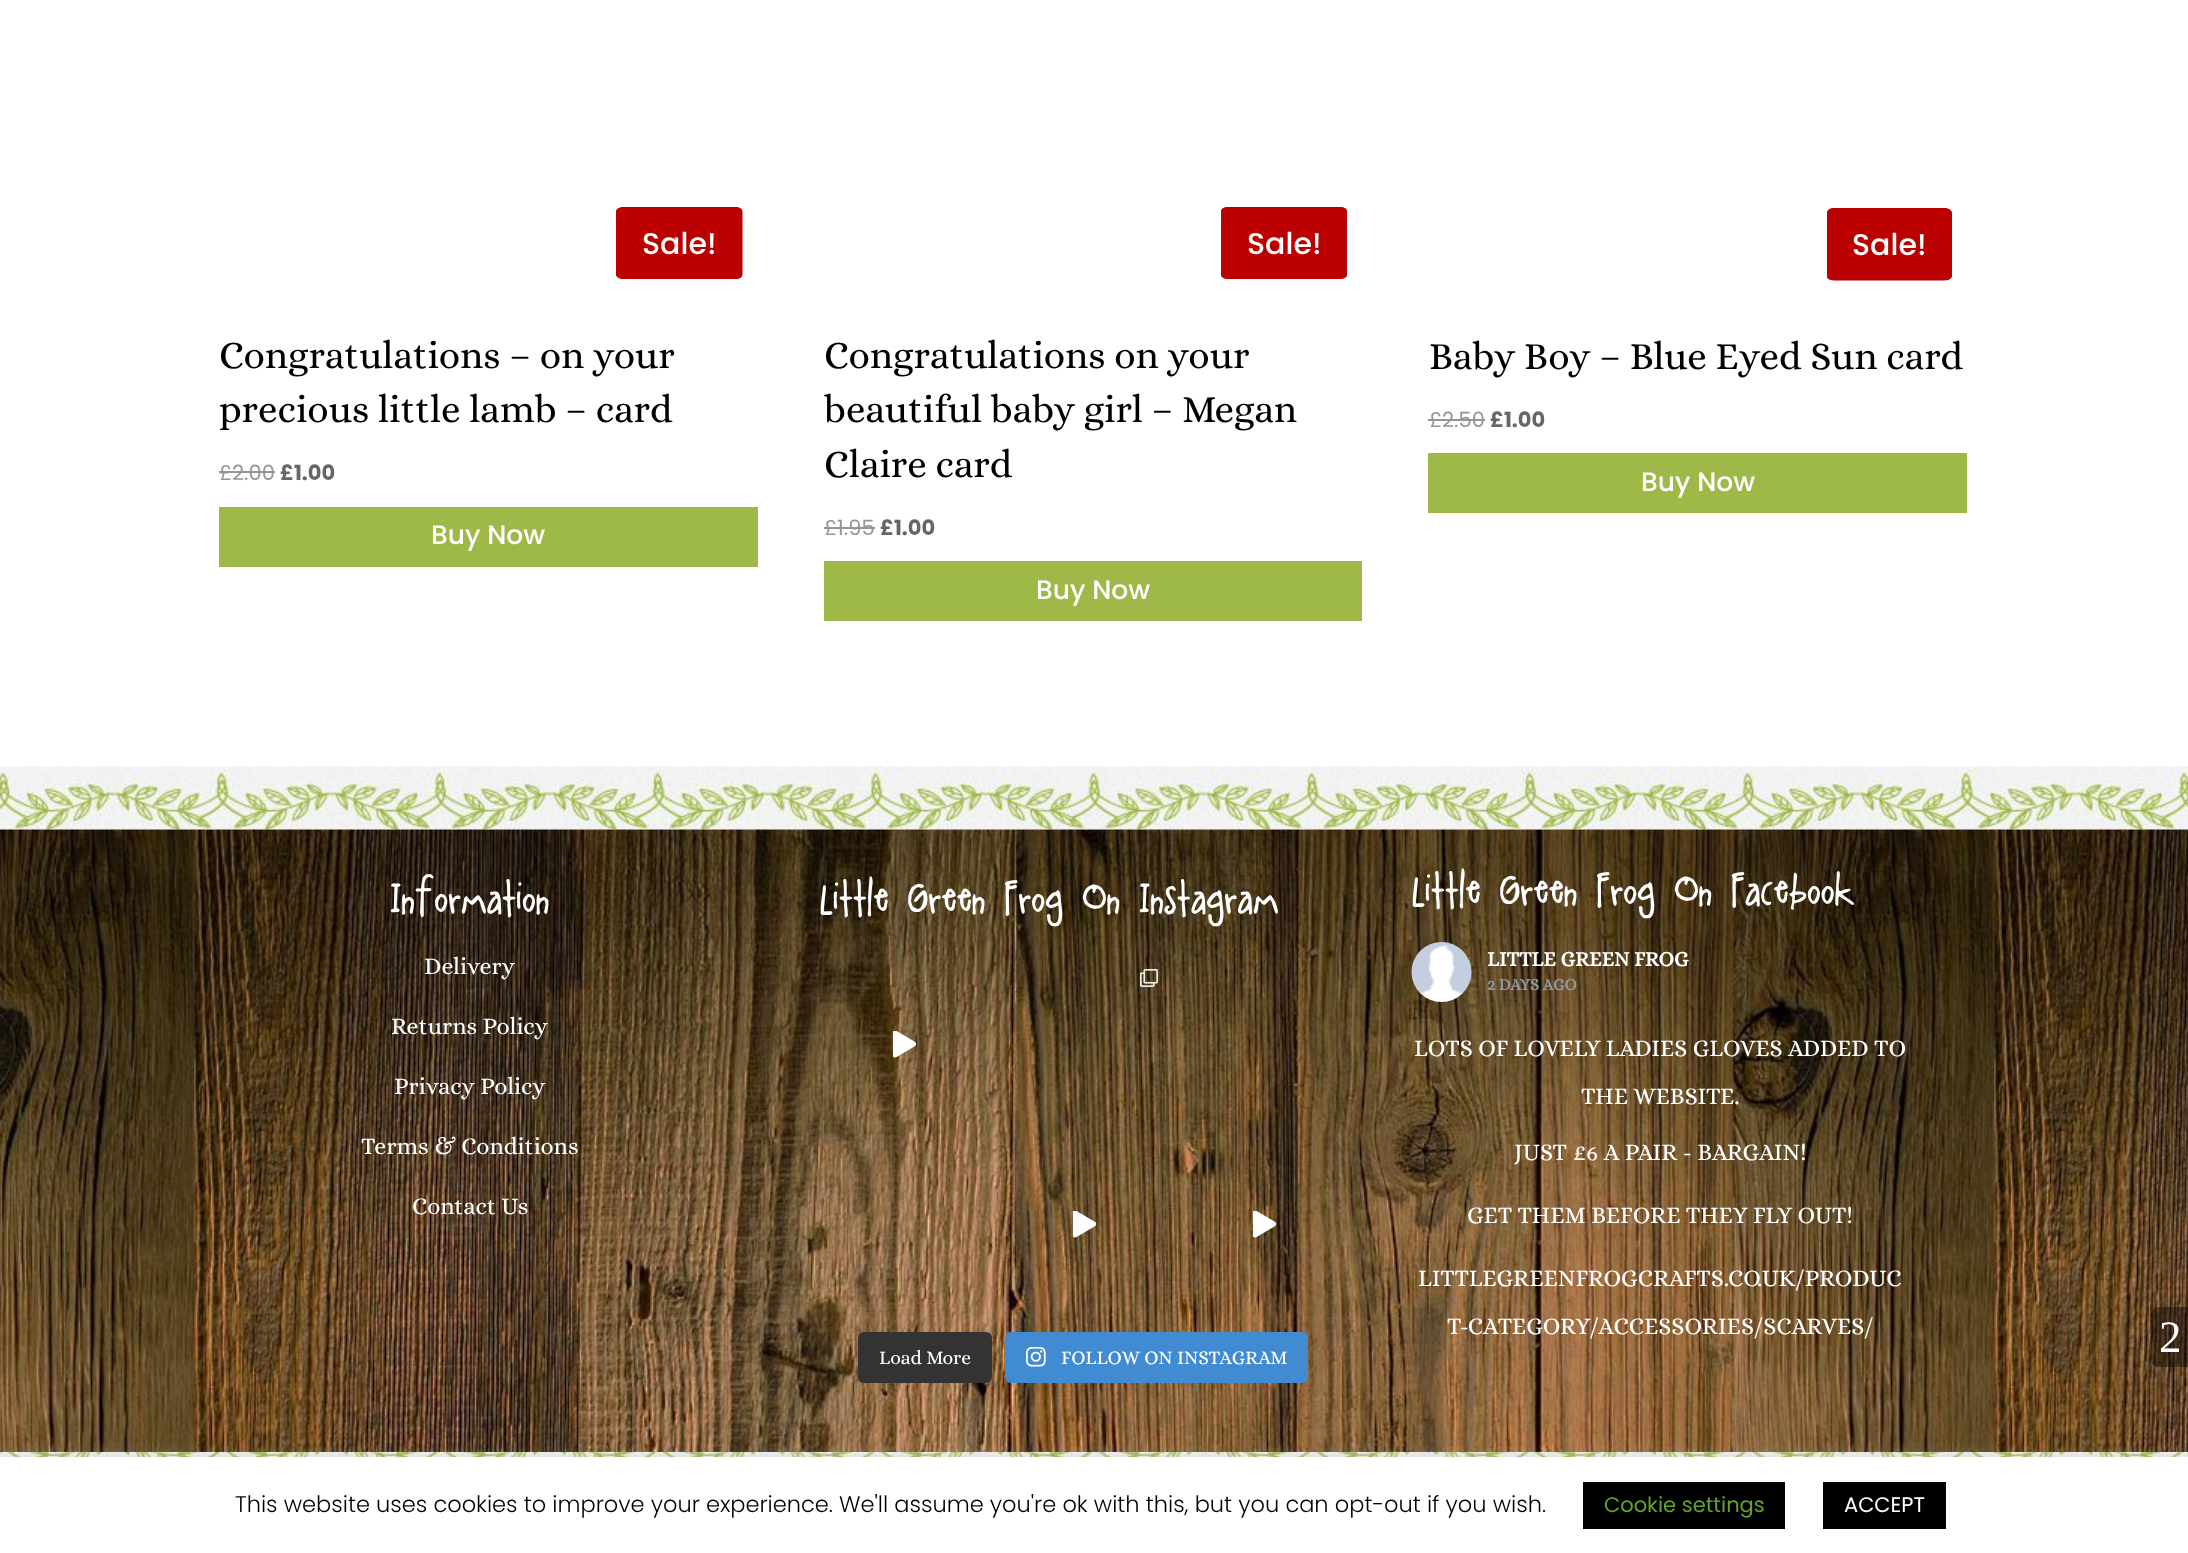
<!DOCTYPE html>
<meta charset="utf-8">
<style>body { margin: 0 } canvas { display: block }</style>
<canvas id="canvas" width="2188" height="1553"></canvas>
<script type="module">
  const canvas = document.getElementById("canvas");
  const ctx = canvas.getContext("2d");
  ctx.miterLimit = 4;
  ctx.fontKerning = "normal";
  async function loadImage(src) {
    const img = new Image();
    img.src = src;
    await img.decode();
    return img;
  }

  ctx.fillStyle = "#ffffff";
  ctx.fillRect(0, 0, 2188, 1553);
  ctx.fillStyle = "#ba0000";
  ctx.beginPath();
  ctx.moveTo(624, 207);
  ctx.lineTo(735, 207);
  ctx.bezierCurveTo(739, 207, 742, 209, 742, 211);
  ctx.lineTo(742, 275);
  ctx.bezierCurveTo(742, 277, 739, 279, 735, 279);
  ctx.lineTo(624, 279);
  ctx.bezierCurveTo(620, 279, 616, 277, 616, 275);
  ctx.lineTo(616, 211);
  ctx.bezierCurveTo(616, 209, 620, 207, 624, 207);
  ctx.closePath();
  ctx.fill();
  ctx.beginPath();
  ctx.moveTo(624, 208.5);
  ctx.lineTo(735, 208.5);
  ctx.bezierCurveTo(738.5, 208.5, 741, 210, 741, 211.5);
  ctx.lineTo(741, 274.5);
  ctx.bezierCurveTo(741, 276, 738.5, 277.5, 735, 277.5);
  ctx.lineTo(624, 277.5);
  ctx.bezierCurveTo(620.5, 277.5, 618, 276, 618, 274.5);
  ctx.lineTo(618, 211.5);
  ctx.bezierCurveTo(618, 210, 620.5, 208.5, 624, 208.5);
  ctx.closePath();
  ctx.strokeStyle = "#ba0000";
  ctx.lineWidth = 3;
  ctx.stroke();
  ctx.font = "500 30px Poppins";
  ctx.fillStyle = "#ffffff";
  ctx.fillText("Sale!", 642, 254);
  ctx.font = "39px Alice";
  ctx.fillStyle = "#000000";
  ctx.fillText("Congratulations – on your", 219, 368);
  ctx.fillText("precious little lamb – card", 219, 422);
  ctx.font = "21px Poppins";
  ctx.fillStyle = "#949494";
  ctx.fillText("£", 219, 480);
  ctx.fillRect(219, 471, 14, 2);
  ctx.fillText("2.00", 232, 480);
  ctx.fillRect(233, 471, 42, 2);
  ctx.font = "bold 21px Poppins";
  ctx.fillStyle = "#666666";
  ctx.fillText("£1.00", 280, 480);
  ctx.fillStyle = "#9fb948";
  ctx.fillRect(219, 507, 539, 60);
  ctx.font = "500 26.5px Poppins";
  ctx.fillStyle = "#ffffff";
  ctx.fillText("Buy Now", 431, 544);
  ctx.fillStyle = "#ba0000";
  ctx.beginPath();
  ctx.moveTo(1229, 207);
  ctx.lineTo(1339, 207);
  ctx.bezierCurveTo(1344, 207, 1347, 209, 1347, 211);
  ctx.lineTo(1347, 275);
  ctx.bezierCurveTo(1347, 277, 1344, 279, 1339, 279);
  ctx.lineTo(1229, 279);
  ctx.bezierCurveTo(1224, 279, 1221, 277, 1221, 275);
  ctx.lineTo(1221, 211);
  ctx.bezierCurveTo(1221, 209, 1224, 207, 1229, 207);
  ctx.closePath();
  ctx.fill();
  ctx.beginPath();
  ctx.moveTo(1228.5, 208.5);
  ctx.lineTo(1339.5, 208.5);
  ctx.bezierCurveTo(1343, 208.5, 1345.5, 210, 1345.5, 211.5);
  ctx.lineTo(1345.5, 274.5);
  ctx.bezierCurveTo(1345.5, 276, 1343, 277.5, 1339.5, 277.5);
  ctx.lineTo(1228.5, 277.5);
  ctx.bezierCurveTo(1225, 277.5, 1222.5, 276, 1222.5, 274.5);
  ctx.lineTo(1222.5, 211.5);
  ctx.bezierCurveTo(1222.5, 210, 1225, 208.5, 1228.5, 208.5);
  ctx.closePath();
  ctx.stroke();
  ctx.font = "500 30px Poppins";
  ctx.fillStyle = "#ffffff";
  ctx.fillText("Sale!", 1247, 254);
  ctx.font = "39px Alice";
  ctx.fillStyle = "#000000";
  ctx.fillText("Congratulations on your", 824, 368);
  ctx.fillText("beautiful baby girl – Megan", 824, 422);
  ctx.fillText("Claire card", 824, 477);
  ctx.font = "21px Poppins";
  ctx.fillStyle = "#949494";
  ctx.fillText("£1.95", 824, 535);
  ctx.fillRect(824, 527, 51, 2);
  ctx.font = "bold 21px Poppins";
  ctx.fillStyle = "#666666";
  ctx.fillText("£1.00", 880, 535);
  ctx.fillStyle = "#9fb948";
  ctx.fillRect(824, 561, 538, 60);
  ctx.font = "500 26.5px Poppins";
  ctx.fillStyle = "#ffffff";
  ctx.fillText("Buy Now", 1036, 599);
  ctx.fillStyle = "#ba0000";
  ctx.beginPath();
  ctx.moveTo(1834, 208);
  ctx.lineTo(1944, 208);
  ctx.bezierCurveTo(1948, 208, 1952, 210, 1952, 213);
  ctx.lineTo(1952, 276);
  ctx.bezierCurveTo(1952, 279, 1948, 280, 1944, 280);
  ctx.lineTo(1834, 280);
  ctx.bezierCurveTo(1830, 280, 1827, 279, 1827, 276);
  ctx.lineTo(1827, 213);
  ctx.bezierCurveTo(1827, 210, 1830, 208, 1834, 208);
  ctx.closePath();
  ctx.fill();
  ctx.beginPath();
  ctx.moveTo(1834.5, 210);
  ctx.lineTo(1944, 210);
  ctx.bezierCurveTo(1947.5, 210, 1950, 211.5, 1950, 213);
  ctx.lineTo(1950, 276);
  ctx.bezierCurveTo(1950, 277.5, 1947.5, 279, 1944, 279);
  ctx.lineTo(1834.5, 279);
  ctx.bezierCurveTo(1831, 279, 1828.5, 277.5, 1828.5, 276);
  ctx.lineTo(1828.5, 213);
  ctx.bezierCurveTo(1828.5, 211.5, 1831, 210, 1834.5, 210);
  ctx.closePath();
  ctx.stroke();
  ctx.font = "500 30px Poppins";
  ctx.fillStyle = "#ffffff";
  ctx.fillText("Sale!", 1852, 255);
  ctx.font = "39px Alice";
  ctx.fillStyle = "#000000";
  ctx.fillText("Baby Boy – Blue Eyed Sun card", 1429, 369);
  ctx.font = "21px Poppins";
  ctx.fillStyle = "#949494";
  ctx.fillText("£2.50", 1429, 427);
  ctx.fillRect(1428, 419, 57, 2);
  ctx.font = "bold 21px Poppins";
  ctx.fillStyle = "#666666";
  ctx.fillText("£1.00", 1490, 427);
  ctx.fillStyle = "#9fb948";
  ctx.fillRect(1428, 453, 539, 60);
  ctx.font = "500 26.5px Poppins";
  ctx.fillStyle = "#ffffff";
  ctx.fillText("Buy Now", 1641, 491);
  ctx.drawImage(await loadImage("img1.png"), 0, 766, 2188, 64);
  ctx.drawImage(await loadImage("img2.png"), 0, 829, 2188, 623);
  ctx.fillStyle = "rgba(0, 0, 0, 0.1)";
  ctx.fillRect(767, 873, 2, 419);
  ctx.font = "39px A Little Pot";
  ctx.fillStyle = "#ffffff";
  ctx.fillText("Information", 390, 914);
  ctx.font = "24px Alice";
  ctx.fillText("Delivery", 424, 974);
  ctx.fillText("Returns Policy", 391, 1034);
  ctx.fillText("Privacy Policy", 394, 1094);
  ctx.fillText("Terms & Conditions", 361, 1154);
  ctx.fillText("Contact Us", 412, 1214);
  ctx.fillStyle = "rgba(0, 0, 0, 0.1)";
  ctx.fillRect(1968, 873, 2, 575);
  ctx.font = "39px A Little Pot";
  ctx.fillStyle = "#ffffff";
  ctx.fillText("Little Green Frog On Instagram", 820, 914);
  ctx.drawImage(await loadImage("img3.png"), 1140, 969, 18, 18);
  ctx.drawImage(await loadImage("img4.png"), 893, 1031, 24, 27);
  ctx.drawImage(await loadImage("img5.png"), 1073, 1211, 24, 27);
  ctx.drawImage(await loadImage("img6.png"), 1253, 1211, 24, 27);
  ctx.fillStyle = "#333333";
  ctx.beginPath();
  ctx.roundRect(858, 1332, 134, 51, 6);
  ctx.fill();
  ctx.font = "19.5px Alice";
  ctx.fillStyle = "#ffffff";
  ctx.fillText("Load More", 879, 1364);
  ctx.fillStyle = "#408bd1";
  ctx.beginPath();
  ctx.roundRect(1005, 1332, 303, 51, 6);
  ctx.fill();
  ctx.drawImage(await loadImage("img7.png"), 1026, 1347, 20, 20);
  ctx.fillStyle = "#ffffff";
  ctx.fillText("FOLLOW ON INSTAGRAM", 1061, 1364);
  ctx.font = "39px A Little Pot";
  ctx.fillText("Little Green Frog On Facebook", 1412, 906);
  ctx.drawImage(await loadImage("img8.png"), 1411, 942, 61, 60);
  ctx.font = "bold 21px Alice";
  ctx.fillText("LITTLE GREEN FROG", 1487, 966);
  ctx.font = "bold 16.5px Alice";
  ctx.fillStyle = "#9197a3";
  ctx.fillText("2 DAYS AGO", 1487, 990);
  ctx.font = "24px Alice";
  ctx.fillStyle = "#ffffff";
  ctx.fillText("LOTS OF LOVELY LADIES GLOVES ADDED TO", 1414, 1056);
  ctx.fillText("THE WEBSITE.", 1581, 1104);
  ctx.fillText("JUST £6 A PAIR - BARGAIN!", 1514, 1160);
  ctx.fillText("GET THEM BEFORE THEY FLY OUT!", 1467, 1223);
  ctx.fillText("LITTLEGREENFROGCRAFTS.CO.UK/PRODUC", 1418, 1286);
  ctx.fillText("T-CATEGORY/ACCESSORIES/SCARVES/", 1447, 1334);
  ctx.drawImage(await loadImage("img9.png"), 0, 1452, 2188, 5);
  ctx.fillStyle = "rgba(0, 0, 0, 0.4)";
  ctx.beginPath();
  ctx.moveTo(2159, 1307);
  ctx.lineTo(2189, 1307);
  ctx.lineTo(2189, 1367);
  ctx.lineTo(2159, 1367);
  ctx.bezierCurveTo(2154.5, 1367, 2151, 1363.5, 2151, 1359);
  ctx.lineTo(2151, 1315);
  ctx.bezierCurveTo(2151, 1310.5, 2154.5, 1307, 2159, 1307);
  ctx.closePath();
  ctx.fill();
  ctx.font = "45px Liberation Serif";
  ctx.fillStyle = "#ffffff";
  ctx.fillText("2", 2159, 1352);
  ctx.fillStyle = "rgba(172, 171, 171, 0.3)";
  ctx.filter = "blur(7.5px)";
  ctx.beginPath();
  ctx.rect(0, 1455, 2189, 98);
  ctx.fill();
  ctx.filter = "none";
  ctx.fillStyle = "#ffffff";
  ctx.fillRect(0, 1457, 2188, 96);
  ctx.font = "300 22.5px Poppins";
  ctx.fillStyle = "#000000";
  ctx.fillText("This website uses cookies to improve your experience. We'll assume you're ok with this, but you can opt-out if you wish.", 235, 1512);
  ctx.fillRect(1583, 1482, 202, 47);
  ctx.font = "21px Poppins";
  ctx.fillStyle = "#62a329";
  ctx.fillText("Cookie settings", 1604, 1512);
  ctx.fillStyle = "#000000";
  ctx.fillRect(1823, 1482, 123, 47);
  ctx.fillStyle = "#ffffff";
  ctx.fillText("ACCEPT", 1844, 1512);
</script>
